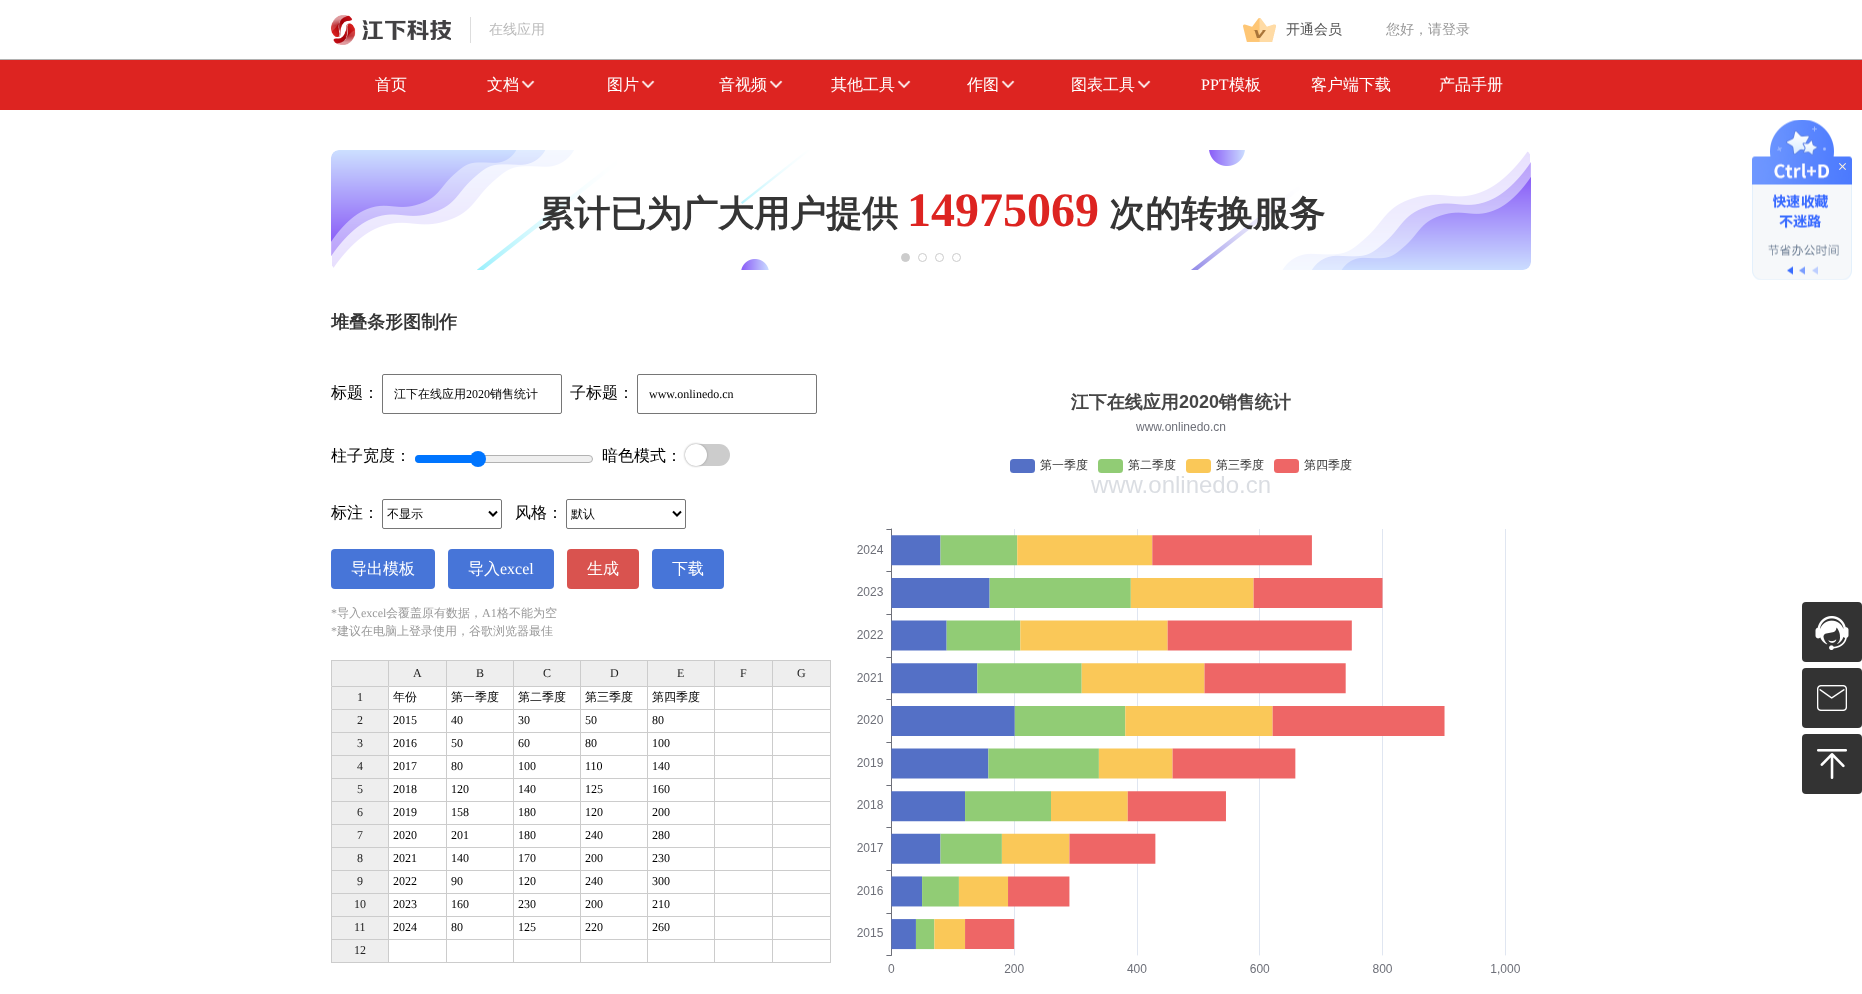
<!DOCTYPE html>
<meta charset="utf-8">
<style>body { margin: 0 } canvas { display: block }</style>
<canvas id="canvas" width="1862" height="994"></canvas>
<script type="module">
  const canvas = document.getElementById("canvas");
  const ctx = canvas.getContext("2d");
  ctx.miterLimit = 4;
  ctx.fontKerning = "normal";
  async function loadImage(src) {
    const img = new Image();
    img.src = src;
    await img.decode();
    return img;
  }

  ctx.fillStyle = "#ffffff";
  ctx.fillRect(0, 0, 1862, 994);
  ctx.fillStyle = "#b1b1b1";
  ctx.fillRect(0, 59, 1862, 1);
  ctx.drawImage(await loadImage("img1.png"), 331, 15, 120, 30);
  ctx.fillStyle = "#dddddd";
  ctx.fillRect(470, 17, 1, 26);
  ctx.font = "500 14px WenQuanYi Zen Hei";
  ctx.fillStyle = "#bbbbbb";
  ctx.fillText("在线应用", 489, 34);
  ctx.drawImage(await loadImage("img2.png"), 1243, 18, 33, 24);
  ctx.fillStyle = "#555555";
  ctx.fillText("开通会员", 1286, 34);
  ctx.fillStyle = "#999999";
  ctx.fillText("您好，请登录", 1386, 34);
  ctx.fillStyle = "#dd2421";
  ctx.fillRect(0, 60, 1862, 50);
  ctx.font = "500 16px WenQuanYi Zen Hei";
  ctx.fillStyle = "#ffffff";
  ctx.fillText("首页", 375, 90);
  ctx.fillText("文档", 487, 90);
  ctx.drawImage(await loadImage("img3.png"), 521, 80, 14, 9);
  ctx.fillText("图片", 607, 90);
  ctx.drawImage(await loadImage("img4.png"), 641, 80, 14, 9);
  ctx.fillText("音视频", 719, 90);
  ctx.drawImage(await loadImage("img4.png"), 769, 80, 14, 9);
  ctx.fillText("其他工具", 831, 90);
  ctx.drawImage(await loadImage("img5.png"), 897, 80, 14, 9);
  ctx.fillText("作图", 967, 90);
  ctx.drawImage(await loadImage("img5.png"), 1001, 80, 14, 9);
  ctx.fillText("图表工具", 1071, 90);
  ctx.drawImage(await loadImage("img5.png"), 1137, 80, 14, 9);
  ctx.font = "16px Liberation Serif";
  ctx.fillText("PPT", 1201, 90);
  ctx.font = "500 16px WenQuanYi Zen Hei";
  ctx.fillText("模板", 1229, 90);
  ctx.fillText("客户端下载", 1311, 90);
  ctx.fillText("产品手册", 1439, 90);
  ctx.drawImage(await loadImage("img6.png"), 1752, 120, 100, 160);
  ctx.drawImage(await loadImage("img7.png"), 1839, 163, 7, 7);
  ctx.fillStyle = "#333333";
  ctx.beginPath();
  ctx.roundRect(1802, 602, 60, 60, 4);
  ctx.fill();
  ctx.drawImage(await loadImage("img8.png"), 1815, 616, 34, 34);
  ctx.beginPath();
  ctx.roundRect(1802, 668, 60, 60, 4);
  ctx.fill();
  ctx.drawImage(await loadImage("img9.png"), 1817, 685, 30, 26);
  ctx.beginPath();
  ctx.roundRect(1802, 734, 60, 60, 4);
  ctx.fill();
  ctx.drawImage(await loadImage("img10.png"), 1817, 749, 30, 30);
  ctx.drawImage(await loadImage("img11.png"), 331, 150, 1200, 120);
  ctx.font = "bold 36px WenQuanYi Zen Hei";
  ctx.fillStyle = "#353535";
  ctx.fillText("累计已为广大用户提供", 538, 226);
  ctx.font = "bold 48px Liberation Serif";
  ctx.fillStyle = "#dd2421";
  ctx.fillText("14975069", 907, 226);
  ctx.font = "bold 36px WenQuanYi Zen Hei";
  ctx.fillStyle = "#353535";
  ctx.fillText("次的转换服务", 1109, 226);
  ctx.fillStyle = "#cccccc";
  ctx.beginPath();
  ctx.arc(905.5, 257.5, 4, 0, Math.PI * 2);
  ctx.fill();
  ctx.strokeStyle = "#cccccc";
  ctx.stroke();
  ctx.beginPath();
  ctx.arc(922.5, 257.5, 4, 0, Math.PI * 2);
  ctx.stroke();
  ctx.beginPath();
  ctx.arc(939.5, 257.5, 4, 0, Math.PI * 2);
  ctx.stroke();
  ctx.beginPath();
  ctx.arc(956.5, 257.5, 4, 0, Math.PI * 2);
  ctx.stroke();
  ctx.font = "bold 18px WenQuanYi Zen Hei";
  ctx.fillStyle = "#353535";
  ctx.fillText("堆叠条形图制作", 331, 328);
  ctx.font = "500 16px WenQuanYi Zen Hei";
  ctx.fillStyle = "#000000";
  ctx.fillText("标题：", 331, 398);
  ctx.beginPath();
  ctx.roundRect(382.5, 374.5, 179, 39, 1.5);
  ctx.strokeStyle = "#767676";
  ctx.stroke();
  ctx.font = "500 12px WenQuanYi Zen Hei";
  ctx.fillText("江下在线应用", 394, 398);
  ctx.font = "12px Liberation Serif";
  ctx.fillText("2020", 466, 398);
  ctx.font = "500 12px WenQuanYi Zen Hei";
  ctx.fillText("销售统计", 490, 398);
  ctx.font = "500 16px WenQuanYi Zen Hei";
  ctx.fillText("子标题：", 570, 398);
  ctx.beginPath();
  ctx.roundRect(637.5, 374.5, 179, 39, 1.5);
  ctx.stroke();
  ctx.font = "12px Liberation Serif";
  ctx.fillText("www.onlinedo.cn", 649, 398);
  ctx.font = "500 16px WenQuanYi Zen Hei";
  ctx.fillText("柱子宽度：", 331, 461);
  ctx.fillStyle = "#efefef";
  ctx.beginPath();
  ctx.roundRect(415.5, 455.5, 177, 7, 3.5);
  ctx.fill();
  ctx.strokeStyle = "#b2b2b2";
  ctx.stroke();
  ctx.fillStyle = "#0075ff";
  ctx.beginPath();
  ctx.roundRect(415, 455, 63, 8, [4, 0, 0, 4]);
  ctx.fill();
  ctx.beginPath();
  ctx.arc(478, 459, 8, 0, Math.PI * 2);
  ctx.fill();
  ctx.fillStyle = "#000000";
  ctx.fillText("暗色模式：", 602, 461);
  ctx.fillStyle = "#cccccc";
  ctx.beginPath();
  ctx.roundRect(685, 444, 45, 22, 11);
  ctx.fill();
  ctx.fillStyle = "#999999";
  ctx.filter = "blur(1px)";
  ctx.beginPath();
  ctx.roundRect(685, 444, 22, 22, 11);
  ctx.fill();
  ctx.filter = "none";
  ctx.fillStyle = "#ffffff";
  ctx.beginPath();
  ctx.arc(696, 455, 11, 0, Math.PI * 2);
  ctx.fill();
  ctx.fillStyle = "#000000";
  ctx.fillText("标注：", 331, 518);
  ctx.beginPath();
  ctx.roundRect(382.5, 499.5, 119, 29, 1.5);
  ctx.strokeStyle = "#767676";
  ctx.stroke();
  ctx.beginPath();
  ctx.moveTo(489, 511.5);
  ctx.lineTo(493, 515.5);
  ctx.lineTo(497, 511.5);
  ctx.strokeStyle = "#000000";
  ctx.lineWidth = 2;
  ctx.stroke();
  ctx.font = "500 12px WenQuanYi Zen Hei";
  ctx.fillText("不显示", 387, 518);
  ctx.font = "500 16px WenQuanYi Zen Hei";
  ctx.fillText("风格：", 515, 518);
  ctx.beginPath();
  ctx.roundRect(566.5, 499.5, 119, 29, 1.5);
  ctx.strokeStyle = "#767676";
  ctx.lineWidth = 1;
  ctx.stroke();
  ctx.beginPath();
  ctx.moveTo(673, 511.5);
  ctx.lineTo(677, 515.5);
  ctx.lineTo(681, 511.5);
  ctx.strokeStyle = "#000000";
  ctx.lineWidth = 2;
  ctx.stroke();
  ctx.font = "500 12px WenQuanYi Zen Hei";
  ctx.fillText("默认", 571, 518);
  ctx.fillStyle = "#4775d8";
  ctx.beginPath();
  ctx.roundRect(331, 549, 104, 40, 4);
  ctx.fill();
  ctx.font = "500 16px WenQuanYi Zen Hei";
  ctx.fillStyle = "#ffffff";
  ctx.fillText("导出模板", 351, 574);
  ctx.fillStyle = "#4775d8";
  ctx.beginPath();
  ctx.roundRect(448, 549, 106, 40, 4);
  ctx.fill();
  ctx.fillStyle = "#ffffff";
  ctx.fillText("导入", 468, 574);
  ctx.font = "16px Liberation Serif";
  ctx.fillText("excel", 500, 574);
  ctx.fillStyle = "#d9534f";
  ctx.beginPath();
  ctx.roundRect(567, 549, 72, 40, 4);
  ctx.fill();
  ctx.font = "500 16px WenQuanYi Zen Hei";
  ctx.fillStyle = "#ffffff";
  ctx.fillText("生成", 587, 574);
  ctx.fillStyle = "#4775d8";
  ctx.beginPath();
  ctx.roundRect(652, 549, 72, 40, 4);
  ctx.fill();
  ctx.fillStyle = "#ffffff";
  ctx.fillText("下载", 672, 574);
  ctx.font = "12px Liberation Serif";
  ctx.fillStyle = "#999999";
  ctx.fillText("*", 331, 617);
  ctx.font = "500 12px WenQuanYi Zen Hei";
  ctx.fillText("导入", 337, 617);
  ctx.font = "12px Liberation Serif";
  ctx.fillText("excel", 361, 617);
  ctx.font = "500 12px WenQuanYi Zen Hei";
  ctx.fillText("会覆盖原有数据，", 386, 617);
  ctx.font = "12px Liberation Serif";
  ctx.fillText("A1", 482, 617);
  ctx.font = "500 12px WenQuanYi Zen Hei";
  ctx.fillText("格不能为空", 497, 617);
  ctx.font = "12px Liberation Serif";
  ctx.fillText("*", 331, 635);
  ctx.font = "500 12px WenQuanYi Zen Hei";
  ctx.fillText("建议在电脑上登录使用，谷歌浏览器最佳", 337, 635);
  ctx.fillStyle = "#eeeeee";
  ctx.fillRect(332, 661, 56, 25);
  ctx.fillStyle = "#cccccc";
  ctx.fillRect(331, 660, 500, 1);
  ctx.fillRect(388, 660, 1, 26);
  ctx.fillRect(331, 660, 1, 26);
  ctx.fillStyle = "#eeeeee";
  ctx.fillRect(389, 661, 57, 25);
  ctx.fillStyle = "#cccccc";
  ctx.fillRect(446, 660, 1, 26);
  ctx.font = "12px Liberation Serif";
  ctx.fillStyle = "#222222";
  ctx.fillText("A", 413, 677);
  ctx.fillStyle = "#eeeeee";
  ctx.fillRect(447, 661, 66, 25);
  ctx.fillStyle = "#cccccc";
  ctx.fillRect(513, 660, 1, 26);
  ctx.fillStyle = "#222222";
  ctx.fillText("B", 476, 677);
  ctx.fillStyle = "#eeeeee";
  ctx.fillRect(514, 661, 66, 25);
  ctx.fillStyle = "#cccccc";
  ctx.fillRect(580, 660, 1, 26);
  ctx.fillStyle = "#222222";
  ctx.fillText("C", 543, 677);
  ctx.fillStyle = "#eeeeee";
  ctx.fillRect(581, 661, 66, 25);
  ctx.fillStyle = "#cccccc";
  ctx.fillRect(647, 660, 1, 26);
  ctx.fillStyle = "#222222";
  ctx.fillText("D", 610, 677);
  ctx.fillStyle = "#eeeeee";
  ctx.fillRect(648, 661, 66, 25);
  ctx.fillStyle = "#cccccc";
  ctx.fillRect(714, 660, 1, 26);
  ctx.fillStyle = "#222222";
  ctx.fillText("E", 677, 677);
  ctx.fillStyle = "#eeeeee";
  ctx.fillRect(715, 661, 57, 25);
  ctx.fillStyle = "#cccccc";
  ctx.fillRect(772, 660, 1, 26);
  ctx.fillStyle = "#222222";
  ctx.fillText("F", 740, 677);
  ctx.fillStyle = "#eeeeee";
  ctx.fillRect(773, 661, 57, 25);
  ctx.fillStyle = "#cccccc";
  ctx.fillRect(830, 660, 1, 26);
  ctx.fillStyle = "#222222";
  ctx.fillText("G", 797, 677);
  ctx.fillStyle = "#eeeeee";
  ctx.beginPath();
  ctx.rect(331.5, 686.5, 57, 23);
  ctx.fill();
  ctx.strokeStyle = "#cccccc";
  ctx.lineWidth = 1;
  ctx.stroke();
  ctx.fillStyle = "#222222";
  ctx.fillText("1", 357, 701);
  ctx.fillStyle = "#cccccc";
  ctx.fillRect(389, 686, 442, 1);
  ctx.fillRect(446, 686, 1, 277);
  ctx.fillRect(389, 709, 58, 1);
  ctx.font = "500 12px WenQuanYi Zen Hei";
  ctx.fillStyle = "#000000";
  ctx.fillText("年份", 393, 701);
  ctx.fillStyle = "#cccccc";
  ctx.fillRect(513, 686, 1, 277);
  ctx.fillRect(447, 709, 67, 1);
  ctx.fillStyle = "#000000";
  ctx.fillText("第一季度", 451, 701);
  ctx.fillStyle = "#cccccc";
  ctx.fillRect(580, 686, 1, 277);
  ctx.fillRect(514, 709, 67, 1);
  ctx.fillStyle = "#000000";
  ctx.fillText("第二季度", 518, 701);
  ctx.fillStyle = "#cccccc";
  ctx.fillRect(647, 686, 1, 277);
  ctx.fillRect(581, 709, 67, 1);
  ctx.fillStyle = "#000000";
  ctx.fillText("第三季度", 585, 701);
  ctx.fillStyle = "#cccccc";
  ctx.fillRect(714, 686, 1, 277);
  ctx.fillRect(648, 709, 67, 1);
  ctx.fillStyle = "#000000";
  ctx.fillText("第四季度", 652, 701);
  ctx.fillStyle = "#cccccc";
  ctx.fillRect(772, 686, 1, 277);
  ctx.fillRect(715, 709, 58, 1);
  ctx.fillRect(830, 686, 1, 277);
  ctx.fillRect(773, 709, 58, 1);
  ctx.fillStyle = "#eeeeee";
  ctx.fillRect(332, 710, 56, 22);
  ctx.fillStyle = "#cccccc";
  ctx.fillRect(388, 710, 1, 253);
  ctx.fillRect(331, 732, 500, 1);
  ctx.fillRect(331, 710, 1, 23);
  ctx.font = "12px Liberation Serif";
  ctx.fillStyle = "#222222";
  ctx.fillText("2", 357, 724);
  ctx.fillStyle = "#000000";
  ctx.fillText("2015", 393, 724);
  ctx.fillText("40", 451, 724);
  ctx.fillText("30", 518, 724);
  ctx.fillText("50", 585, 724);
  ctx.fillText("80", 652, 724);
  ctx.fillStyle = "#eeeeee";
  ctx.fillRect(332, 733, 56, 22);
  ctx.fillStyle = "#cccccc";
  ctx.fillRect(331, 755, 500, 1);
  ctx.fillRect(331, 733, 1, 23);
  ctx.fillStyle = "#222222";
  ctx.fillText("3", 357, 747);
  ctx.fillStyle = "#000000";
  ctx.fillText("2016", 393, 747);
  ctx.fillText("50", 451, 747);
  ctx.fillText("60", 518, 747);
  ctx.fillText("80", 585, 747);
  ctx.fillText("100", 652, 747);
  ctx.fillStyle = "#eeeeee";
  ctx.fillRect(332, 756, 56, 22);
  ctx.fillStyle = "#cccccc";
  ctx.fillRect(331, 778, 500, 1);
  ctx.fillRect(331, 756, 1, 23);
  ctx.fillStyle = "#222222";
  ctx.fillText("4", 357, 770);
  ctx.fillStyle = "#000000";
  ctx.fillText("2017", 393, 770);
  ctx.fillText("80", 451, 770);
  ctx.fillText("100", 518, 770);
  ctx.fillText("110", 585, 770);
  ctx.fillText("140", 652, 770);
  ctx.fillStyle = "#eeeeee";
  ctx.fillRect(332, 779, 56, 22);
  ctx.fillStyle = "#cccccc";
  ctx.fillRect(331, 801, 500, 1);
  ctx.fillRect(331, 779, 1, 23);
  ctx.fillStyle = "#222222";
  ctx.fillText("5", 357, 793);
  ctx.fillStyle = "#000000";
  ctx.fillText("2018", 393, 793);
  ctx.fillText("120", 451, 793);
  ctx.fillText("140", 518, 793);
  ctx.fillText("125", 585, 793);
  ctx.fillText("160", 652, 793);
  ctx.fillStyle = "#eeeeee";
  ctx.fillRect(332, 802, 56, 22);
  ctx.fillStyle = "#cccccc";
  ctx.fillRect(331, 824, 500, 1);
  ctx.fillRect(331, 802, 1, 23);
  ctx.fillStyle = "#222222";
  ctx.fillText("6", 357, 816);
  ctx.fillStyle = "#000000";
  ctx.fillText("2019", 393, 816);
  ctx.fillText("158", 451, 816);
  ctx.fillText("180", 518, 816);
  ctx.fillText("120", 585, 816);
  ctx.fillText("200", 652, 816);
  ctx.fillStyle = "#eeeeee";
  ctx.fillRect(332, 825, 56, 22);
  ctx.fillStyle = "#cccccc";
  ctx.fillRect(331, 847, 500, 1);
  ctx.fillRect(331, 825, 1, 23);
  ctx.fillStyle = "#222222";
  ctx.fillText("7", 357, 839);
  ctx.fillStyle = "#000000";
  ctx.fillText("2020", 393, 839);
  ctx.fillText("201", 451, 839);
  ctx.fillText("180", 518, 839);
  ctx.fillText("240", 585, 839);
  ctx.fillText("280", 652, 839);
  ctx.fillStyle = "#eeeeee";
  ctx.fillRect(332, 848, 56, 22);
  ctx.fillStyle = "#cccccc";
  ctx.fillRect(331, 870, 500, 1);
  ctx.fillRect(331, 848, 1, 23);
  ctx.fillStyle = "#222222";
  ctx.fillText("8", 357, 862);
  ctx.fillStyle = "#000000";
  ctx.fillText("2021", 393, 862);
  ctx.fillText("140", 451, 862);
  ctx.fillText("170", 518, 862);
  ctx.fillText("200", 585, 862);
  ctx.fillText("230", 652, 862);
  ctx.fillStyle = "#eeeeee";
  ctx.fillRect(332, 871, 56, 22);
  ctx.fillStyle = "#cccccc";
  ctx.fillRect(331, 893, 500, 1);
  ctx.fillRect(331, 871, 1, 23);
  ctx.fillStyle = "#222222";
  ctx.fillText("9", 357, 885);
  ctx.fillStyle = "#000000";
  ctx.fillText("2022", 393, 885);
  ctx.fillText("90", 451, 885);
  ctx.fillText("120", 518, 885);
  ctx.fillText("240", 585, 885);
  ctx.fillText("300", 652, 885);
  ctx.fillStyle = "#eeeeee";
  ctx.fillRect(332, 894, 56, 22);
  ctx.fillStyle = "#cccccc";
  ctx.fillRect(331, 916, 500, 1);
  ctx.fillRect(331, 894, 1, 23);
  ctx.fillStyle = "#222222";
  ctx.fillText("10", 354, 908);
  ctx.fillStyle = "#000000";
  ctx.fillText("2023", 393, 908);
  ctx.fillText("160", 451, 908);
  ctx.fillText("230", 518, 908);
  ctx.fillText("200", 585, 908);
  ctx.fillText("210", 652, 908);
  ctx.fillStyle = "#eeeeee";
  ctx.fillRect(332, 917, 56, 22);
  ctx.fillStyle = "#cccccc";
  ctx.fillRect(331, 939, 500, 1);
  ctx.fillRect(331, 917, 1, 23);
  ctx.fillStyle = "#222222";
  ctx.fillText("11", 354, 931);
  ctx.fillStyle = "#000000";
  ctx.fillText("2024", 393, 931);
  ctx.fillText("80", 451, 931);
  ctx.fillText("125", 518, 931);
  ctx.fillText("220", 585, 931);
  ctx.fillText("260", 652, 931);
  ctx.fillStyle = "#eeeeee";
  ctx.fillRect(332, 940, 56, 22);
  ctx.fillStyle = "#cccccc";
  ctx.fillRect(331, 962, 500, 1);
  ctx.fillRect(331, 940, 1, 23);
  ctx.fillStyle = "#222222";
  ctx.fillText("12", 354, 954);
  ctx.drawImage(await loadImage("img12.png"), 857, 392, 663, 583);
</script>
